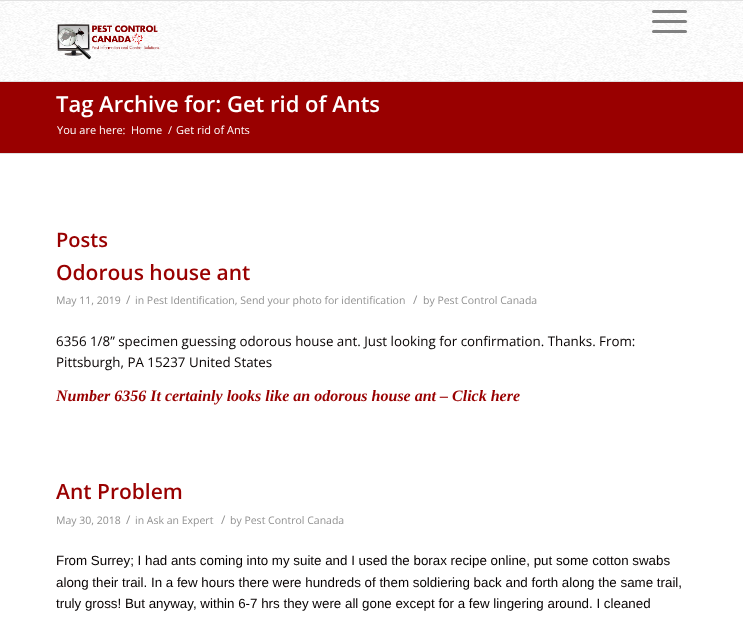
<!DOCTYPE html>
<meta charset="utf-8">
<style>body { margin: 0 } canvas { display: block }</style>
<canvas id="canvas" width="743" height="619"></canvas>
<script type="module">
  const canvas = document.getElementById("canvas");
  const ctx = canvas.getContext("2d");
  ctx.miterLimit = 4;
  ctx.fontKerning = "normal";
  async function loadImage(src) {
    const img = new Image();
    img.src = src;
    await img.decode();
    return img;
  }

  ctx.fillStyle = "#ffffff";
  ctx.fillRect(0, 0, 743, 619);
  ctx.fillStyle = "#e1e1e1";
  ctx.fillRect(0, 0, 743, 1);
  ctx.fillRect(0, 81, 743, 1);
  ctx.drawImage(await loadImage("img2.png"), 0, 1, 743, 80);
  ctx.fillStyle = "#808080";
  ctx.beginPath();
  ctx.roundRect(652, 20, 35, 3, 1.5);
  ctx.fill();
  ctx.beginPath();
  ctx.roundRect(652, 10, 35, 3, 1.5);
  ctx.fill();
  ctx.beginPath();
  ctx.roundRect(652, 30, 35, 3, 1.5);
  ctx.fill();
  ctx.drawImage(await loadImage("img1.png"), 57, 24, 103, 36);
  ctx.fillStyle = "#990000";
  ctx.fillRect(0, 82, 743, 71);
  ctx.font = "600 22px Open Sans";
  ctx.fillStyle = "#ffffff";
  ctx.fillText("Tag Archive for: Get rid of Ants", 56, 112);
  ctx.font = "11px Open Sans";
  ctx.fillText("You are here:", 57, 134);
  ctx.fillText("Home", 131, 134);
  ctx.fillText("/", 168, 134);
  ctx.fillText("Get rid of Ants", 176, 134);
  ctx.fillStyle = "#e1e1e1";
  ctx.fillRect(0, 153, 743, 1);
  ctx.font = "600 20px Open Sans";
  ctx.fillStyle = "#990000";
  ctx.fillText("Posts", 56, 247);
  ctx.font = "600 21px Open Sans";
  ctx.fillText("Odorous house ant", 56, 280);
  ctx.font = "10.5px Open Sans";
  ctx.fillStyle = "#919191";
  ctx.fillText("May 11, 2019", 56, 304);
  ctx.font = "12px Open Sans";
  ctx.fillText("/", 126, 304);
  ctx.font = "10.5px Open Sans";
  ctx.fillText("in Pest Identification, Send your photo for identification", 135, 304);
  ctx.font = "12px Open Sans";
  ctx.fillText("/", 413, 304);
  ctx.font = "10.5px Open Sans";
  ctx.fillText("by Pest Control Canada", 423, 304);
  ctx.font = "13.35px Open Sans";
  ctx.fillStyle = "#060000";
  ctx.fillText("6356 1/8” specimen guessing odorous house ant. Just looking for confirmation. Thanks. From:", 56, 346);
  ctx.fillText("Pittsburgh, PA 15237 United States", 56, 367);
  ctx.font = "italic bold 16px Liberation Serif";
  ctx.fillStyle = "#990000";
  ctx.fillText("Number 6356 It certainly looks like an odorous house ant – Click here", 56, 401);
  ctx.font = "600 21px Open Sans";
  ctx.fillText("Ant Problem", 56, 499);
  ctx.font = "10.5px Open Sans";
  ctx.fillStyle = "#919191";
  ctx.fillText("May 30, 2018", 56, 524);
  ctx.font = "12px Open Sans";
  ctx.fillText("/", 126, 524);
  ctx.font = "10.5px Open Sans";
  ctx.fillText("in Ask an Expert", 135, 524);
  ctx.font = "12px Open Sans";
  ctx.fillText("/", 221, 524);
  ctx.font = "10.5px Open Sans";
  ctx.fillText("by Pest Control Canada", 230, 524);
  ctx.font = "13.35px Liberation Sans";
  ctx.fillStyle = "#060000";
  ctx.fillText("From Surrey; I had ants coming into my suite and I used the borax recipe online, put some cotton swabs", 56, 565);
  ctx.fillText("along their trail. In a few hours there were hundreds of them soldiering back and forth along the same trail,", 56, 587);
  ctx.fillText("truly gross! But anyway, within 6-7 hrs they were all gone except for a few lingering around. I cleaned", 56, 608);
</script>
